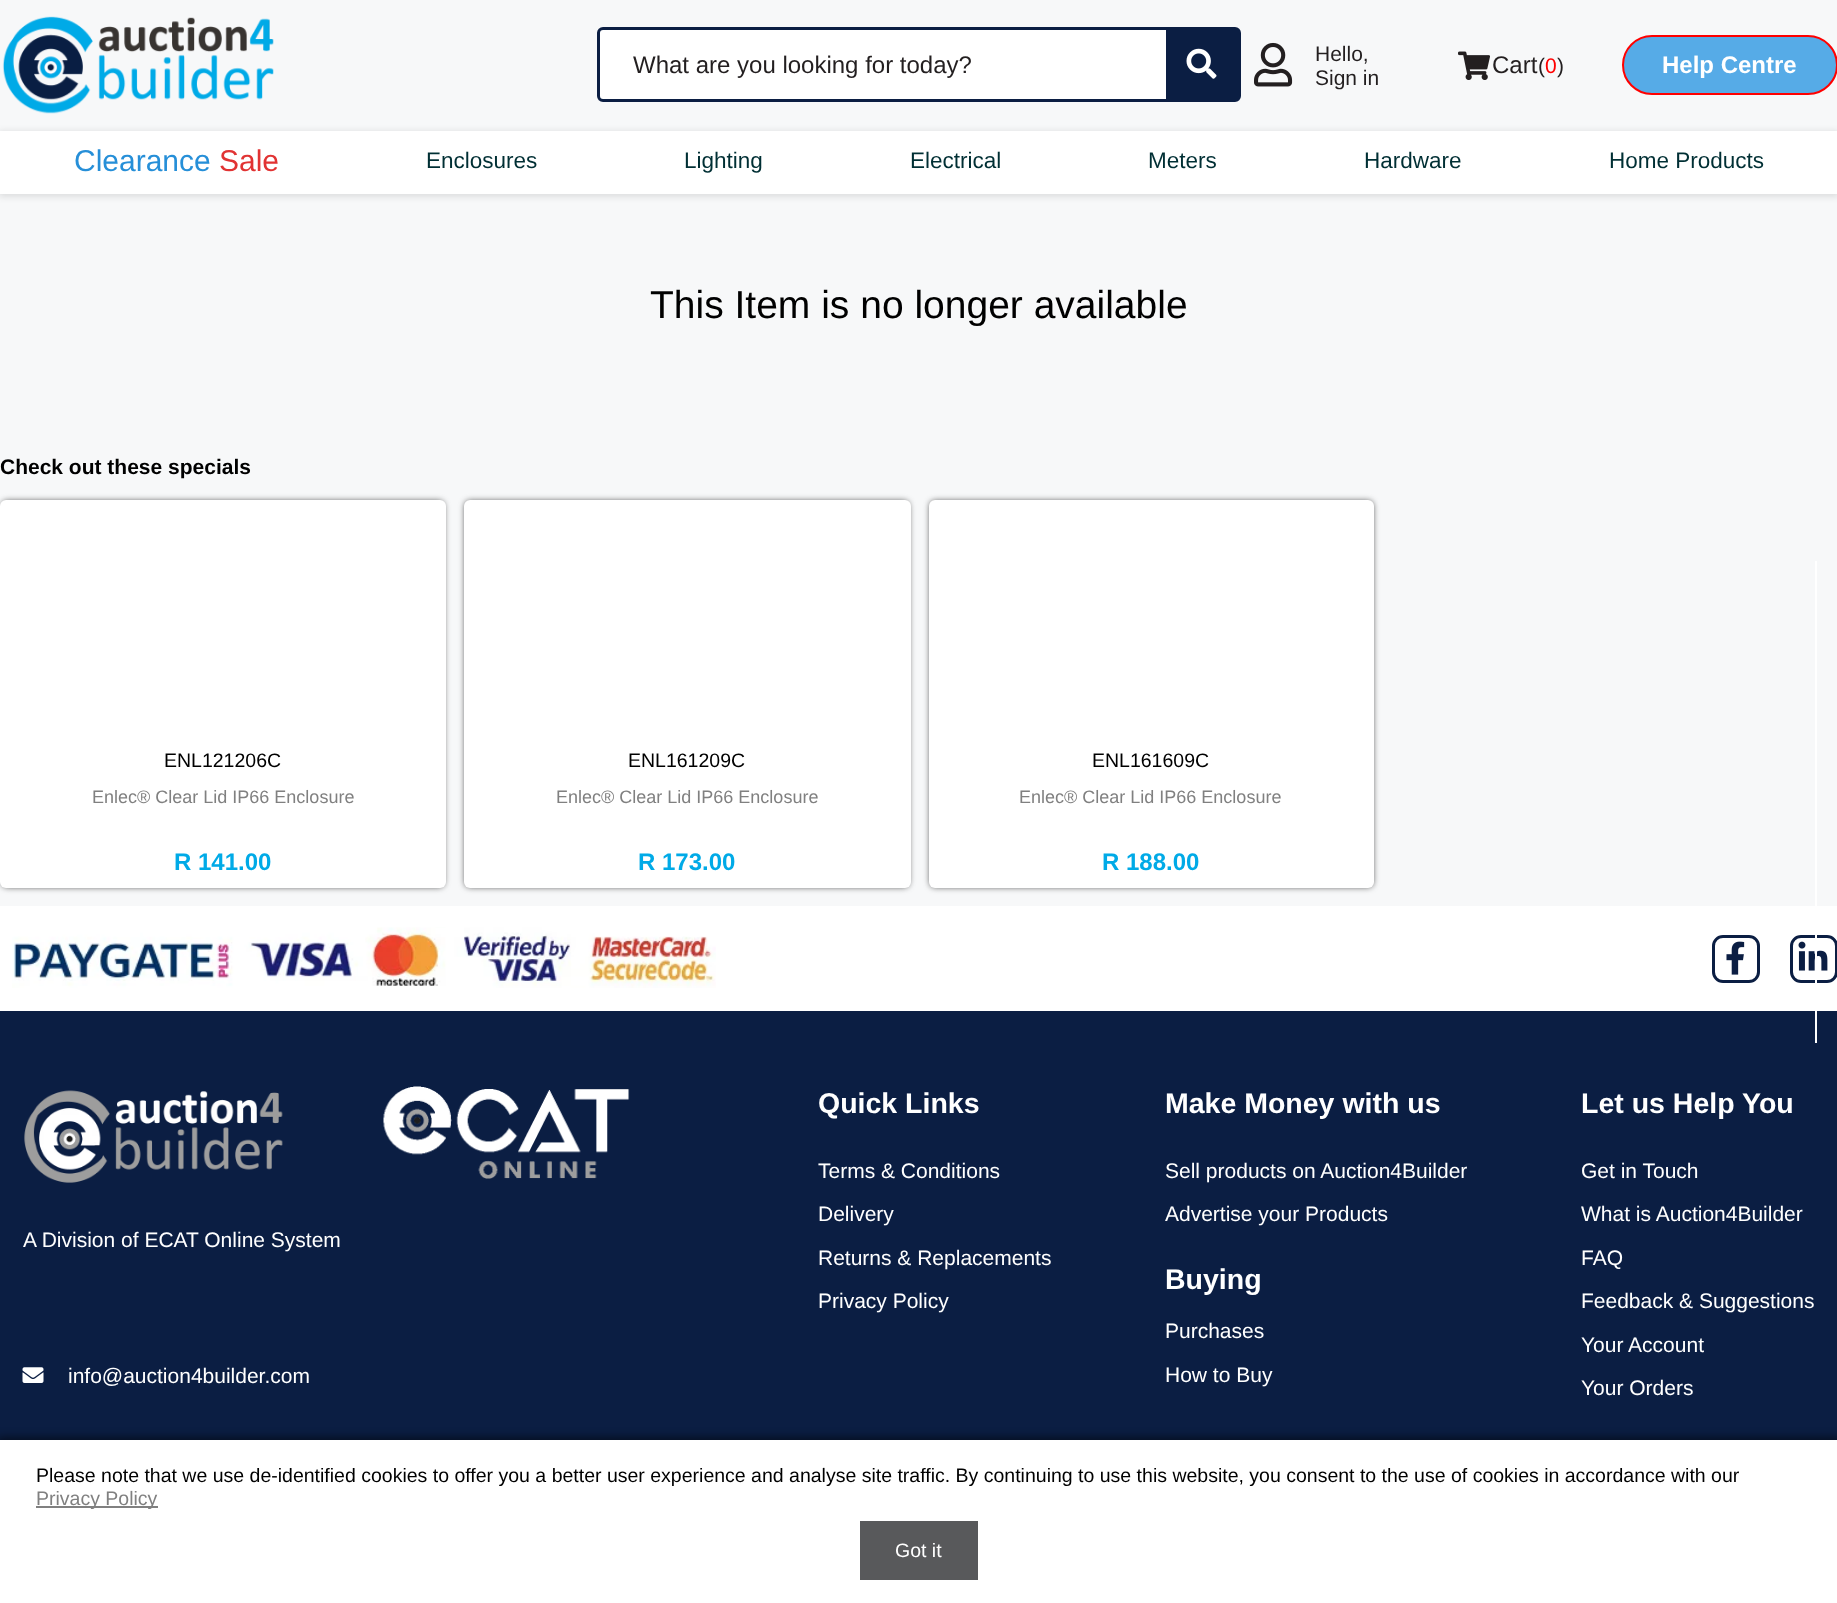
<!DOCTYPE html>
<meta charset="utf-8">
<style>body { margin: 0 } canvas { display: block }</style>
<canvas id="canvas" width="1837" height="1603"></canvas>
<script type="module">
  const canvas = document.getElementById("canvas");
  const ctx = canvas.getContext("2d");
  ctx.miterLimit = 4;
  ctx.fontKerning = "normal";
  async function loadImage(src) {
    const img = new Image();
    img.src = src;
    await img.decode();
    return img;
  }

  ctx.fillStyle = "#f7f8f9";
  ctx.fillRect(0, 0, 1837, 1603);
  ctx.drawImage(await loadImage("img1.png"), 2, 16, 272, 98);
  ctx.fillStyle = "#ffffff";
  ctx.beginPath();
  ctx.roundRect(598.5, 28.5, 641, 72, 4.5);
  ctx.fill();
  ctx.strokeStyle = "#0b1e43";
  ctx.lineWidth = 3;
  ctx.stroke();
  ctx.font = "24px Liberation Sans";
  ctx.fillStyle = "#231f20";
  ctx.fillText("What are you looking for today?", 633, 73);
  ctx.fillStyle = "#0b1e43";
  ctx.fillRect(1166, 30, 72, 69);
  ctx.drawImage(await loadImage("img2.png"), 1186, 48, 31, 31);
  ctx.drawImage(await loadImage("img3.png"), 1254, 42, 39, 45);
  ctx.font = "21px Liberation Sans";
  ctx.fillStyle = "#231f20";
  ctx.fillText("Hello,", 1315, 61);
  ctx.fillText("Sign in", 1315, 85);
  ctx.drawImage(await loadImage("img4.png"), 1458, 51, 32, 29);
  ctx.font = "24px Liberation Sans";
  ctx.fillText("Cart", 1492, 73);
  ctx.font = "21px Liberation Sans";
  ctx.fillText("(", 1538, 73);
  ctx.fillStyle = "#ff0000";
  ctx.fillText("0", 1545, 73);
  ctx.fillStyle = "#231f20";
  ctx.fillText(")", 1557, 73);
  ctx.fillStyle = "#56abe7";
  ctx.beginPath();
  ctx.roundRect(1623, 36, 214, 58, 29);
  ctx.fill();
  ctx.strokeStyle = "#ff0000";
  ctx.lineWidth = 2;
  ctx.stroke();
  ctx.font = "bold 24px Liberation Sans";
  ctx.fillStyle = "#ffffff";
  ctx.fillText("Help Centre", 1662, 73);
  ctx.fillStyle = "rgba(0, 0, 0, 0.1)";
  ctx.filter = "blur(3px)";
  ctx.beginPath();
  ctx.rect(-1, 131, 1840, 66);
  ctx.fill();
  ctx.filter = "none";
  ctx.fillStyle = "#ffffff";
  ctx.fillRect(0, 131, 1837, 63);
  ctx.font = "30px Liberation Sans";
  ctx.fillStyle = "#268fd8";
  ctx.fillText("Clearance", 74, 171);
  ctx.fillStyle = "#e13333";
  ctx.fillText("Sale", 219, 171);
  ctx.font = "22.5px Liberation Sans";
  ctx.fillStyle = "#002f34";
  ctx.fillText("Enclosures", 426, 168);
  ctx.fillText("Lighting", 684, 168);
  ctx.fillText("Electrical", 910, 168);
  ctx.fillText("Meters", 1148, 168);
  ctx.fillText("Hardware", 1364, 168);
  ctx.fillText("Home Products", 1609, 168);
  ctx.font = "39px Liberation Sans";
  ctx.fillStyle = "#000000";
  ctx.fillText("This Item is no longer available", 650, 318);
  ctx.font = "bold 21px Liberation Sans";
  ctx.fillText("Check out these specials", 0, 474);
  ctx.fillStyle = "#484848";
  ctx.filter = "blur(3px)";
  ctx.beginPath();
  ctx.roundRect(2, 501, 442, 386, 5);
  ctx.fill();
  ctx.filter = "none";
  ctx.fillStyle = "#ffffff";
  ctx.beginPath();
  ctx.roundRect(0, 500, 446, 388, 6);
  ctx.fill();
  ctx.font = "19.5px Liberation Sans";
  ctx.fillStyle = "#000000";
  ctx.fillText("ENL121206C", 164, 767);
  ctx.font = "18px Liberation Sans";
  ctx.fillStyle = "#808080";
  ctx.fillText("Enlec® Clear Lid IP66 Enclosure", 92, 803);
  ctx.font = "bold 24px Liberation Sans";
  ctx.fillStyle = "#00aae7";
  ctx.fillText("R 141.00", 174, 870);
  ctx.fillStyle = "#484848";
  ctx.filter = "blur(3px)";
  ctx.beginPath();
  ctx.roundRect(465, 501, 444, 386, 5);
  ctx.fill();
  ctx.filter = "none";
  ctx.fillStyle = "#ffffff";
  ctx.beginPath();
  ctx.roundRect(464, 500, 447, 388, 6);
  ctx.fill();
  ctx.font = "19.5px Liberation Sans";
  ctx.fillStyle = "#000000";
  ctx.fillText("ENL161209C", 628, 767);
  ctx.font = "18px Liberation Sans";
  ctx.fillStyle = "#808080";
  ctx.fillText("Enlec® Clear Lid IP66 Enclosure", 556, 803);
  ctx.font = "bold 24px Liberation Sans";
  ctx.fillStyle = "#00aae7";
  ctx.fillText("R 173.00", 638, 870);
  ctx.fillStyle = "#484848";
  ctx.filter = "blur(3px)";
  ctx.beginPath();
  ctx.roundRect(930, 501, 443, 386, 5);
  ctx.fill();
  ctx.filter = "none";
  ctx.fillStyle = "#ffffff";
  ctx.beginPath();
  ctx.roundRect(929, 500, 445, 388, 6);
  ctx.fill();
  ctx.font = "19.5px Liberation Sans";
  ctx.fillStyle = "#000000";
  ctx.fillText("ENL161609C", 1092, 767);
  ctx.font = "18px Liberation Sans";
  ctx.fillStyle = "#808080";
  ctx.fillText("Enlec® Clear Lid IP66 Enclosure", 1019, 803);
  ctx.font = "bold 24px Liberation Sans";
  ctx.fillStyle = "#00aae7";
  ctx.fillText("R 188.00", 1102, 870);
  ctx.fillStyle = "#ffffff";
  ctx.fillRect(0, 906, 1837, 105);
  ctx.beginPath();
  ctx.roundRect(1791.5, 936.5, 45, 45, 9.5);
  ctx.strokeStyle = "#0b1e43";
  ctx.lineWidth = 3;
  ctx.stroke();
  ctx.drawImage(await loadImage("img7.png"), 1798, 941, 30, 30);
  ctx.fillStyle = "#0b1e43";
  ctx.fillRect(0, 1011, 1837, 429);
  ctx.fillStyle = "#ffffff";
  ctx.fillRect(1815, 561, 2, 482);
  ctx.drawImage(await loadImage("img5.png"), 12, 927, 704, 61);
  ctx.beginPath();
  ctx.roundRect(1713.5, 936.5, 45, 45, 9.5);
  ctx.stroke();
  ctx.drawImage(await loadImage("img6.png"), 1726, 941, 19, 34);
  ctx.drawImage(await loadImage("img8.png"), 24, 1090, 259, 93);
  ctx.drawImage(await loadImage("img9.png"), 383, 1086, 247, 93);
  ctx.font = "21px Liberation Sans";
  ctx.fillText("A Division of ECAT Online System", 23, 1247);
  ctx.drawImage(await loadImage("img10.png"), 22, 1367, 22, 16);
  ctx.fillText("info@auction4builder.com", 68, 1383);
  ctx.font = "bold 28.5px Liberation Sans";
  ctx.fillText("Quick Links", 818, 1113);
  ctx.font = "21px Liberation Sans";
  ctx.fillText("Terms & Conditions", 818, 1178);
  ctx.fillText("Delivery", 818, 1221);
  ctx.fillText("Returns & Replacements", 818, 1265);
  ctx.fillText("Privacy Policy", 818, 1308);
  ctx.font = "bold 28.5px Liberation Sans";
  ctx.fillText("Make Money with us", 1165, 1113);
  ctx.font = "21px Liberation Sans";
  ctx.fillText("Sell products on Auction4Builder", 1165, 1178);
  ctx.fillText("Advertise your Products", 1165, 1221);
  ctx.font = "bold 28.5px Liberation Sans";
  ctx.fillText("Buying", 1165, 1289);
  ctx.font = "21px Liberation Sans";
  ctx.fillText("Purchases", 1165, 1338);
  ctx.fillText("How to Buy", 1165, 1382);
  ctx.font = "bold 28.5px Liberation Sans";
  ctx.fillText("Let us Help You", 1581, 1113);
  ctx.font = "21px Liberation Sans";
  ctx.fillText("Get in Touch", 1581, 1178);
  ctx.fillText("What is Auction4Builder", 1581, 1221);
  ctx.fillText("FAQ", 1581, 1265);
  ctx.fillText("Feedback & Suggestions", 1581, 1308);
  ctx.fillText("Your Account", 1581, 1352);
  ctx.fillText("Your Orders", 1581, 1395);
  ctx.fillStyle = "rgba(0, 0, 0, 0.5)";
  ctx.filter = "blur(4.5px)";
  ctx.beginPath();
  ctx.rect(-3, 1437, 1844, 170);
  ctx.fill();
  ctx.filter = "none";
  ctx.fillStyle = "#ffffff";
  ctx.fillRect(0, 1440, 1837, 163);
  ctx.font = "19.5px Liberation Sans";
  ctx.fillStyle = "#000000";
  ctx.fillText("Please note that we use de-identified cookies to offer you a better user experience and analyse site traffic. By continuing to use this website, you consent to the use of cookies in accordance with our", 36, 1482);
  ctx.fillStyle = "#808080";
  ctx.fillRect(36, 1506, 122, 2);
  ctx.fillText("Privacy Policy", 36, 1505);
  ctx.fillStyle = "#58595b";
  ctx.fillRect(860, 1521, 118, 59);
  ctx.fillStyle = "#ffffff";
  ctx.fillText("Got it", 895, 1557);
</script>
